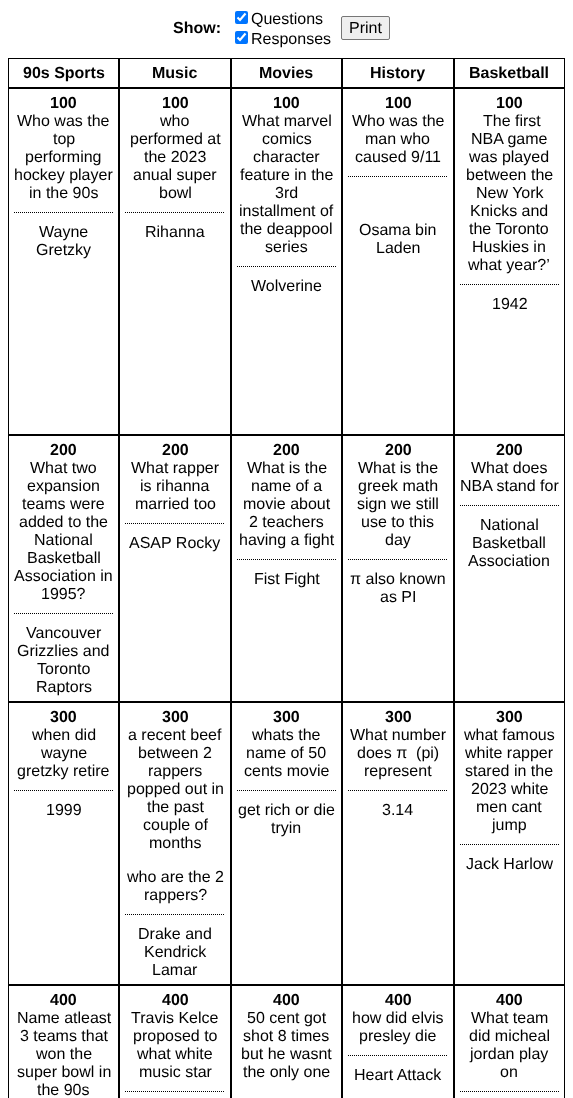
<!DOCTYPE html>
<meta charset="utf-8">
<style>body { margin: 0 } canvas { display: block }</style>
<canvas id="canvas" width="573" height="1098"></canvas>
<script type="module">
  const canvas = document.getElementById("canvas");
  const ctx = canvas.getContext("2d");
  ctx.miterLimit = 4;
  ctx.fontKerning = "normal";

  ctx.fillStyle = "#ffffff";
  ctx.fillRect(0, 0, 573, 1098);
  ctx.font = "bold 16px Liberation Sans";
  ctx.fillStyle = "#000000";
  ctx.fillText("Show:", 173, 33);
  ctx.fillStyle = "#0075ff";
  ctx.beginPath();
  ctx.roundRect(235, 11, 13, 13, 2);
  ctx.fill();
  ctx.beginPath();
  ctx.moveTo(237.5, 17.5);
  ctx.lineTo(240, 20);
  ctx.lineTo(245.5, 13.5);
  ctx.strokeStyle = "#ffffff";
  ctx.lineWidth = 2.1;
  ctx.stroke();
  ctx.font = "16px Liberation Sans";
  ctx.fillStyle = "#000000";
  ctx.fillText("Questions", 251, 24);
  ctx.fillStyle = "#0075ff";
  ctx.beginPath();
  ctx.roundRect(235, 31, 13, 13, 2);
  ctx.fill();
  ctx.beginPath();
  ctx.moveTo(237.5, 37.5);
  ctx.lineTo(240, 40);
  ctx.lineTo(245.5, 33.5);
  ctx.stroke();
  ctx.fillStyle = "#000000";
  ctx.fillText("Responses", 251, 44);
  ctx.fillStyle = "#efefef";
  ctx.beginPath();
  ctx.roundRect(341.5, 16.5, 48, 23, 1.5);
  ctx.fill();
  ctx.strokeStyle = "#767676";
  ctx.lineWidth = 1;
  ctx.stroke();
  ctx.fillStyle = "#000000";
  ctx.fillText("Print", 349, 33);
  ctx.strokeStyle = "#000000";
  ctx.strokeRect(8.5, 58.5, 110, 29);
  ctx.font = "bold 16px Liberation Sans";
  ctx.fillText("90s Sports", 23, 78);
  ctx.strokeRect(119.5, 58.5, 111, 29);
  ctx.fillText("Music", 152, 78);
  ctx.strokeRect(231.5, 58.5, 110, 29);
  ctx.fillText("Movies", 259, 78);
  ctx.strokeRect(342.5, 58.5, 111, 29);
  ctx.fillText("History", 370, 78);
  ctx.strokeRect(454.5, 58.5, 110, 29);
  ctx.fillText("Basketball", 469, 78);
  ctx.strokeRect(8.5, 88.5, 110, 346);
  ctx.fillText("100", 50, 108);
  ctx.font = "16px Liberation Sans";
  ctx.fillText("Who was the", 17, 126);
  ctx.fillText("top", 53, 144);
  ctx.fillText("performing", 25, 162);
  ctx.fillText("hockey player", 14, 180);
  ctx.fillText("in the 90s", 29, 198);
  ctx.beginPath();
  ctx.moveTo(14, 212.5);
  ctx.lineTo(113, 212.5);
  ctx.setLineDash([1, 1]);
  ctx.stroke();
  ctx.fillText("Wayne", 39, 237);
  ctx.fillText("Gretzky", 36, 255);
  ctx.setLineDash([]);
  ctx.strokeRect(119.5, 88.5, 111, 346);
  ctx.font = "bold 16px Liberation Sans";
  ctx.fillText("100", 162, 108);
  ctx.font = "16px Liberation Sans";
  ctx.fillText("who", 160, 126);
  ctx.fillText("performed at", 130, 144);
  ctx.fillText("the 2023", 144, 162);
  ctx.fillText("anual super", 133, 180);
  ctx.fillText("bowl", 159, 198);
  ctx.beginPath();
  ctx.moveTo(125, 212.5);
  ctx.lineTo(225, 212.5);
  ctx.setLineDash([1, 1]);
  ctx.stroke();
  ctx.fillText("Rihanna", 145, 237);
  ctx.setLineDash([]);
  ctx.strokeRect(231.5, 88.5, 110, 346);
  ctx.font = "bold 16px Liberation Sans";
  ctx.fillText("100", 273, 108);
  ctx.font = "16px Liberation Sans";
  ctx.fillText("What marvel", 242, 126);
  ctx.fillText("comics", 262, 144);
  ctx.fillText("character", 253, 162);
  ctx.fillText("feature in the", 240, 180);
  ctx.fillText("3rd", 275, 198);
  ctx.fillText("installment of", 239, 216);
  ctx.fillText("the deappool", 240, 234);
  ctx.fillText("series", 265, 252);
  ctx.beginPath();
  ctx.moveTo(237, 266.5);
  ctx.lineTo(336, 266.5);
  ctx.setLineDash([1, 1]);
  ctx.stroke();
  ctx.fillText("Wolverine", 251, 291);
  ctx.setLineDash([]);
  ctx.strokeRect(342.5, 88.5, 111, 346);
  ctx.font = "bold 16px Liberation Sans";
  ctx.fillText("100", 385, 108);
  ctx.font = "16px Liberation Sans";
  ctx.fillText("Who was the", 352, 126);
  ctx.fillText("man who", 365, 144);
  ctx.fillText("caused 9/11", 355, 162);
  ctx.beginPath();
  ctx.moveTo(348, 176.5);
  ctx.lineTo(448, 176.5);
  ctx.setLineDash([1, 1]);
  ctx.stroke();
  ctx.fillText("Osama bin", 359, 235);
  ctx.fillText("Laden", 376, 253);
  ctx.setLineDash([]);
  ctx.strokeRect(454.5, 88.5, 110, 346);
  ctx.font = "bold 16px Liberation Sans";
  ctx.fillText("100", 496, 108);
  ctx.font = "16px Liberation Sans";
  ctx.fillText("The first", 483, 126);
  ctx.fillText("NBA game", 471, 144);
  ctx.fillText("was played", 469, 162);
  ctx.fillText("between the", 466, 180);
  ctx.fillText("New York", 476, 198);
  ctx.fillText("Knicks and", 470, 216);
  ctx.fillText("the Toronto", 469, 234);
  ctx.fillText("Huskies in", 472, 252);
  ctx.fillText("what year?’", 468, 270);
  ctx.beginPath();
  ctx.moveTo(460, 284.5);
  ctx.lineTo(559, 284.5);
  ctx.setLineDash([1, 1]);
  ctx.stroke();
  ctx.fillText("1942", 492, 309);
  ctx.setLineDash([]);
  ctx.strokeRect(8.5, 435.5, 110, 266);
  ctx.font = "bold 16px Liberation Sans";
  ctx.fillText("200", 50, 455);
  ctx.font = "16px Liberation Sans";
  ctx.fillText("What two", 30, 473);
  ctx.fillText("expansion", 27, 491);
  ctx.fillText("teams were", 22, 509);
  ctx.fillText("added to the", 19, 527);
  ctx.fillText("National", 34, 545);
  ctx.fillText("Basketball", 27, 563);
  ctx.fillText("Association in", 14, 581);
  ctx.fillText("1995?", 41, 599);
  ctx.beginPath();
  ctx.moveTo(14, 613.5);
  ctx.lineTo(113, 613.5);
  ctx.setLineDash([1, 1]);
  ctx.stroke();
  ctx.fillText("Vancouver", 26, 638);
  ctx.fillText("Grizzlies and", 17, 656);
  ctx.fillText("Toronto", 37, 674);
  ctx.fillText("Raptors", 36, 692);
  ctx.setLineDash([]);
  ctx.strokeRect(119.5, 435.5, 111, 266);
  ctx.font = "bold 16px Liberation Sans";
  ctx.fillText("200", 162, 455);
  ctx.font = "16px Liberation Sans";
  ctx.fillText("What rapper", 131, 473);
  ctx.fillText("is rihanna", 140, 491);
  ctx.fillText("married too", 135, 509);
  ctx.beginPath();
  ctx.moveTo(125, 523.5);
  ctx.lineTo(225, 523.5);
  ctx.setLineDash([1, 1]);
  ctx.stroke();
  ctx.fillText("ASAP Rocky", 129, 548);
  ctx.setLineDash([]);
  ctx.strokeRect(231.5, 435.5, 110, 266);
  ctx.font = "bold 16px Liberation Sans";
  ctx.fillText("200", 273, 455);
  ctx.font = "16px Liberation Sans";
  ctx.fillText("What is the", 247, 473);
  ctx.fillText("name of a", 251, 491);
  ctx.fillText("movie about", 243, 509);
  ctx.fillText("2 teachers", 249, 527);
  ctx.fillText("having a fight", 239, 545);
  ctx.beginPath();
  ctx.moveTo(237, 559.5);
  ctx.lineTo(336, 559.5);
  ctx.setLineDash([1, 1]);
  ctx.stroke();
  ctx.fillText("Fist Fight", 254, 584);
  ctx.setLineDash([]);
  ctx.strokeRect(342.5, 435.5, 111, 266);
  ctx.font = "bold 16px Liberation Sans";
  ctx.fillText("200", 385, 455);
  ctx.font = "16px Liberation Sans";
  ctx.fillText("What is the", 358, 473);
  ctx.fillText("greek math", 358, 491);
  ctx.fillText("sign we still", 357, 509);
  ctx.fillText("use to this", 361, 527);
  ctx.fillText("day", 385, 545);
  ctx.beginPath();
  ctx.moveTo(348, 559.5);
  ctx.lineTo(448, 559.5);
  ctx.setLineDash([1, 1]);
  ctx.stroke();
  ctx.fillText("π also known", 350, 584);
  ctx.fillText("as PI", 380, 602);
  ctx.setLineDash([]);
  ctx.strokeRect(454.5, 435.5, 110, 266);
  ctx.font = "bold 16px Liberation Sans";
  ctx.fillText("200", 496, 455);
  ctx.font = "16px Liberation Sans";
  ctx.fillText("What does", 471, 473);
  ctx.fillText("NBA stand for", 460, 491);
  ctx.beginPath();
  ctx.moveTo(460, 505.5);
  ctx.lineTo(559, 505.5);
  ctx.setLineDash([1, 1]);
  ctx.stroke();
  ctx.fillText("National", 480, 530);
  ctx.fillText("Basketball", 472, 548);
  ctx.fillText("Association", 468, 566);
  ctx.setLineDash([]);
  ctx.strokeRect(8.5, 702.5, 110, 282);
  ctx.font = "bold 16px Liberation Sans";
  ctx.fillText("300", 50, 722);
  ctx.font = "16px Liberation Sans";
  ctx.fillText("when did", 32, 740);
  ctx.fillText("wayne", 41, 758);
  ctx.fillText("gretzky retire", 17, 776);
  ctx.beginPath();
  ctx.moveTo(14, 790.5);
  ctx.lineTo(113, 790.5);
  ctx.setLineDash([1, 1]);
  ctx.stroke();
  ctx.fillText("1999", 46, 815);
  ctx.setLineDash([]);
  ctx.strokeRect(119.5, 702.5, 111, 282);
  ctx.font = "bold 16px Liberation Sans";
  ctx.fillText("300", 162, 722);
  ctx.font = "16px Liberation Sans";
  ctx.fillText("a recent beef", 128, 740);
  ctx.fillText("between 2", 138, 758);
  ctx.fillText("rappers", 148, 776);
  ctx.fillText("popped out in", 127, 794);
  ctx.fillText("the past", 147, 812);
  ctx.fillText("couple of", 143, 830);
  ctx.fillText("months", 149, 848);
  ctx.fillText("who are the 2", 127, 882);
  ctx.fillText("rappers?", 144, 900);
  ctx.beginPath();
  ctx.moveTo(125, 914.5);
  ctx.lineTo(225, 914.5);
  ctx.setLineDash([1, 1]);
  ctx.stroke();
  ctx.fillText("Drake and", 138, 939);
  ctx.fillText("Kendrick", 144, 957);
  ctx.fillText("Lamar", 152, 975);
  ctx.setLineDash([]);
  ctx.strokeRect(231.5, 702.5, 110, 282);
  ctx.font = "bold 16px Liberation Sans";
  ctx.fillText("300", 273, 722);
  ctx.font = "16px Liberation Sans";
  ctx.fillText("whats the", 252, 740);
  ctx.fillText("name of 50", 246, 758);
  ctx.fillText("cents movie", 244, 776);
  ctx.beginPath();
  ctx.moveTo(237, 790.5);
  ctx.lineTo(336, 790.5);
  ctx.setLineDash([1, 1]);
  ctx.stroke();
  ctx.fillText("get rich or die", 238, 815);
  ctx.fillText("tryin", 271, 833);
  ctx.setLineDash([]);
  ctx.strokeRect(342.5, 702.5, 111, 282);
  ctx.font = "bold 16px Liberation Sans";
  ctx.fillText("300", 385, 722);
  ctx.font = "16px Liberation Sans";
  ctx.fillText("What number", 350, 740);
  ctx.fillText("does π  (pi)", 357, 758);
  ctx.fillText("represent", 364, 776);
  ctx.beginPath();
  ctx.moveTo(348, 790.5);
  ctx.lineTo(448, 790.5);
  ctx.setLineDash([1, 1]);
  ctx.stroke();
  ctx.fillText("3.14", 382, 815);
  ctx.setLineDash([]);
  ctx.strokeRect(454.5, 702.5, 110, 282);
  ctx.font = "bold 16px Liberation Sans";
  ctx.fillText("300", 496, 722);
  ctx.font = "16px Liberation Sans";
  ctx.fillText("what famous", 464, 740);
  ctx.fillText("white rapper", 465, 758);
  ctx.fillText("stared in the", 465, 776);
  ctx.fillText("2023 white", 471, 794);
  ctx.fillText("men cant", 476, 812);
  ctx.fillText("jump", 492, 830);
  ctx.beginPath();
  ctx.moveTo(460, 844.5);
  ctx.lineTo(559, 844.5);
  ctx.setLineDash([1, 1]);
  ctx.stroke();
  ctx.fillText("Jack Harlow", 466, 869);
  ctx.setLineDash([]);
  ctx.strokeRect(8.5, 985.5, 110, 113);
  ctx.font = "bold 16px Liberation Sans";
  ctx.fillText("400", 50, 1005);
  ctx.font = "16px Liberation Sans";
  ctx.fillText("Name atleast", 17, 1023);
  ctx.fillText("3 teams that", 20, 1041);
  ctx.fillText("won the", 36, 1059);
  ctx.fillText("super bowl in", 17, 1077);
  ctx.fillText("the 90s", 37, 1095);
  ctx.strokeRect(119.5, 985.5, 111, 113);
  ctx.font = "bold 16px Liberation Sans";
  ctx.fillText("400", 162, 1005);
  ctx.font = "16px Liberation Sans";
  ctx.fillText("Travis Kelce", 131, 1023);
  ctx.fillText("proposed to", 133, 1041);
  ctx.fillText("what white", 137, 1059);
  ctx.fillText("music star", 139, 1077);
  ctx.beginPath();
  ctx.moveTo(125, 1091.5);
  ctx.lineTo(225, 1091.5);
  ctx.setLineDash([1, 1]);
  ctx.stroke();
  ctx.setLineDash([]);
  ctx.strokeRect(231.5, 985.5, 110, 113);
  ctx.font = "bold 16px Liberation Sans";
  ctx.fillText("400", 273, 1005);
  ctx.font = "16px Liberation Sans";
  ctx.fillText("50 cent got", 247, 1023);
  ctx.fillText("shot 8 times", 243, 1041);
  ctx.fillText("but he wasnt", 241, 1059);
  ctx.fillText("the only one", 243, 1077);
  ctx.strokeRect(342.5, 985.5, 111, 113);
  ctx.font = "bold 16px Liberation Sans";
  ctx.fillText("400", 385, 1005);
  ctx.font = "16px Liberation Sans";
  ctx.fillText("how did elvis", 352, 1023);
  ctx.fillText("presley die", 359, 1041);
  ctx.beginPath();
  ctx.moveTo(348, 1055.5);
  ctx.lineTo(448, 1055.5);
  ctx.setLineDash([1, 1]);
  ctx.stroke();
  ctx.fillText("Heart Attack", 354, 1080);
  ctx.setLineDash([]);
  ctx.strokeRect(454.5, 985.5, 110, 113);
  ctx.font = "bold 16px Liberation Sans";
  ctx.fillText("400", 496, 1005);
  ctx.font = "16px Liberation Sans";
  ctx.fillText("What team", 471, 1023);
  ctx.fillText("did micheal", 469, 1041);
  ctx.fillText("jordan play", 470, 1059);
  ctx.fillText("on", 500, 1077);
  ctx.beginPath();
  ctx.moveTo(460, 1091.5);
  ctx.lineTo(559, 1091.5);
  ctx.setLineDash([1, 1]);
  ctx.stroke();
</script>
